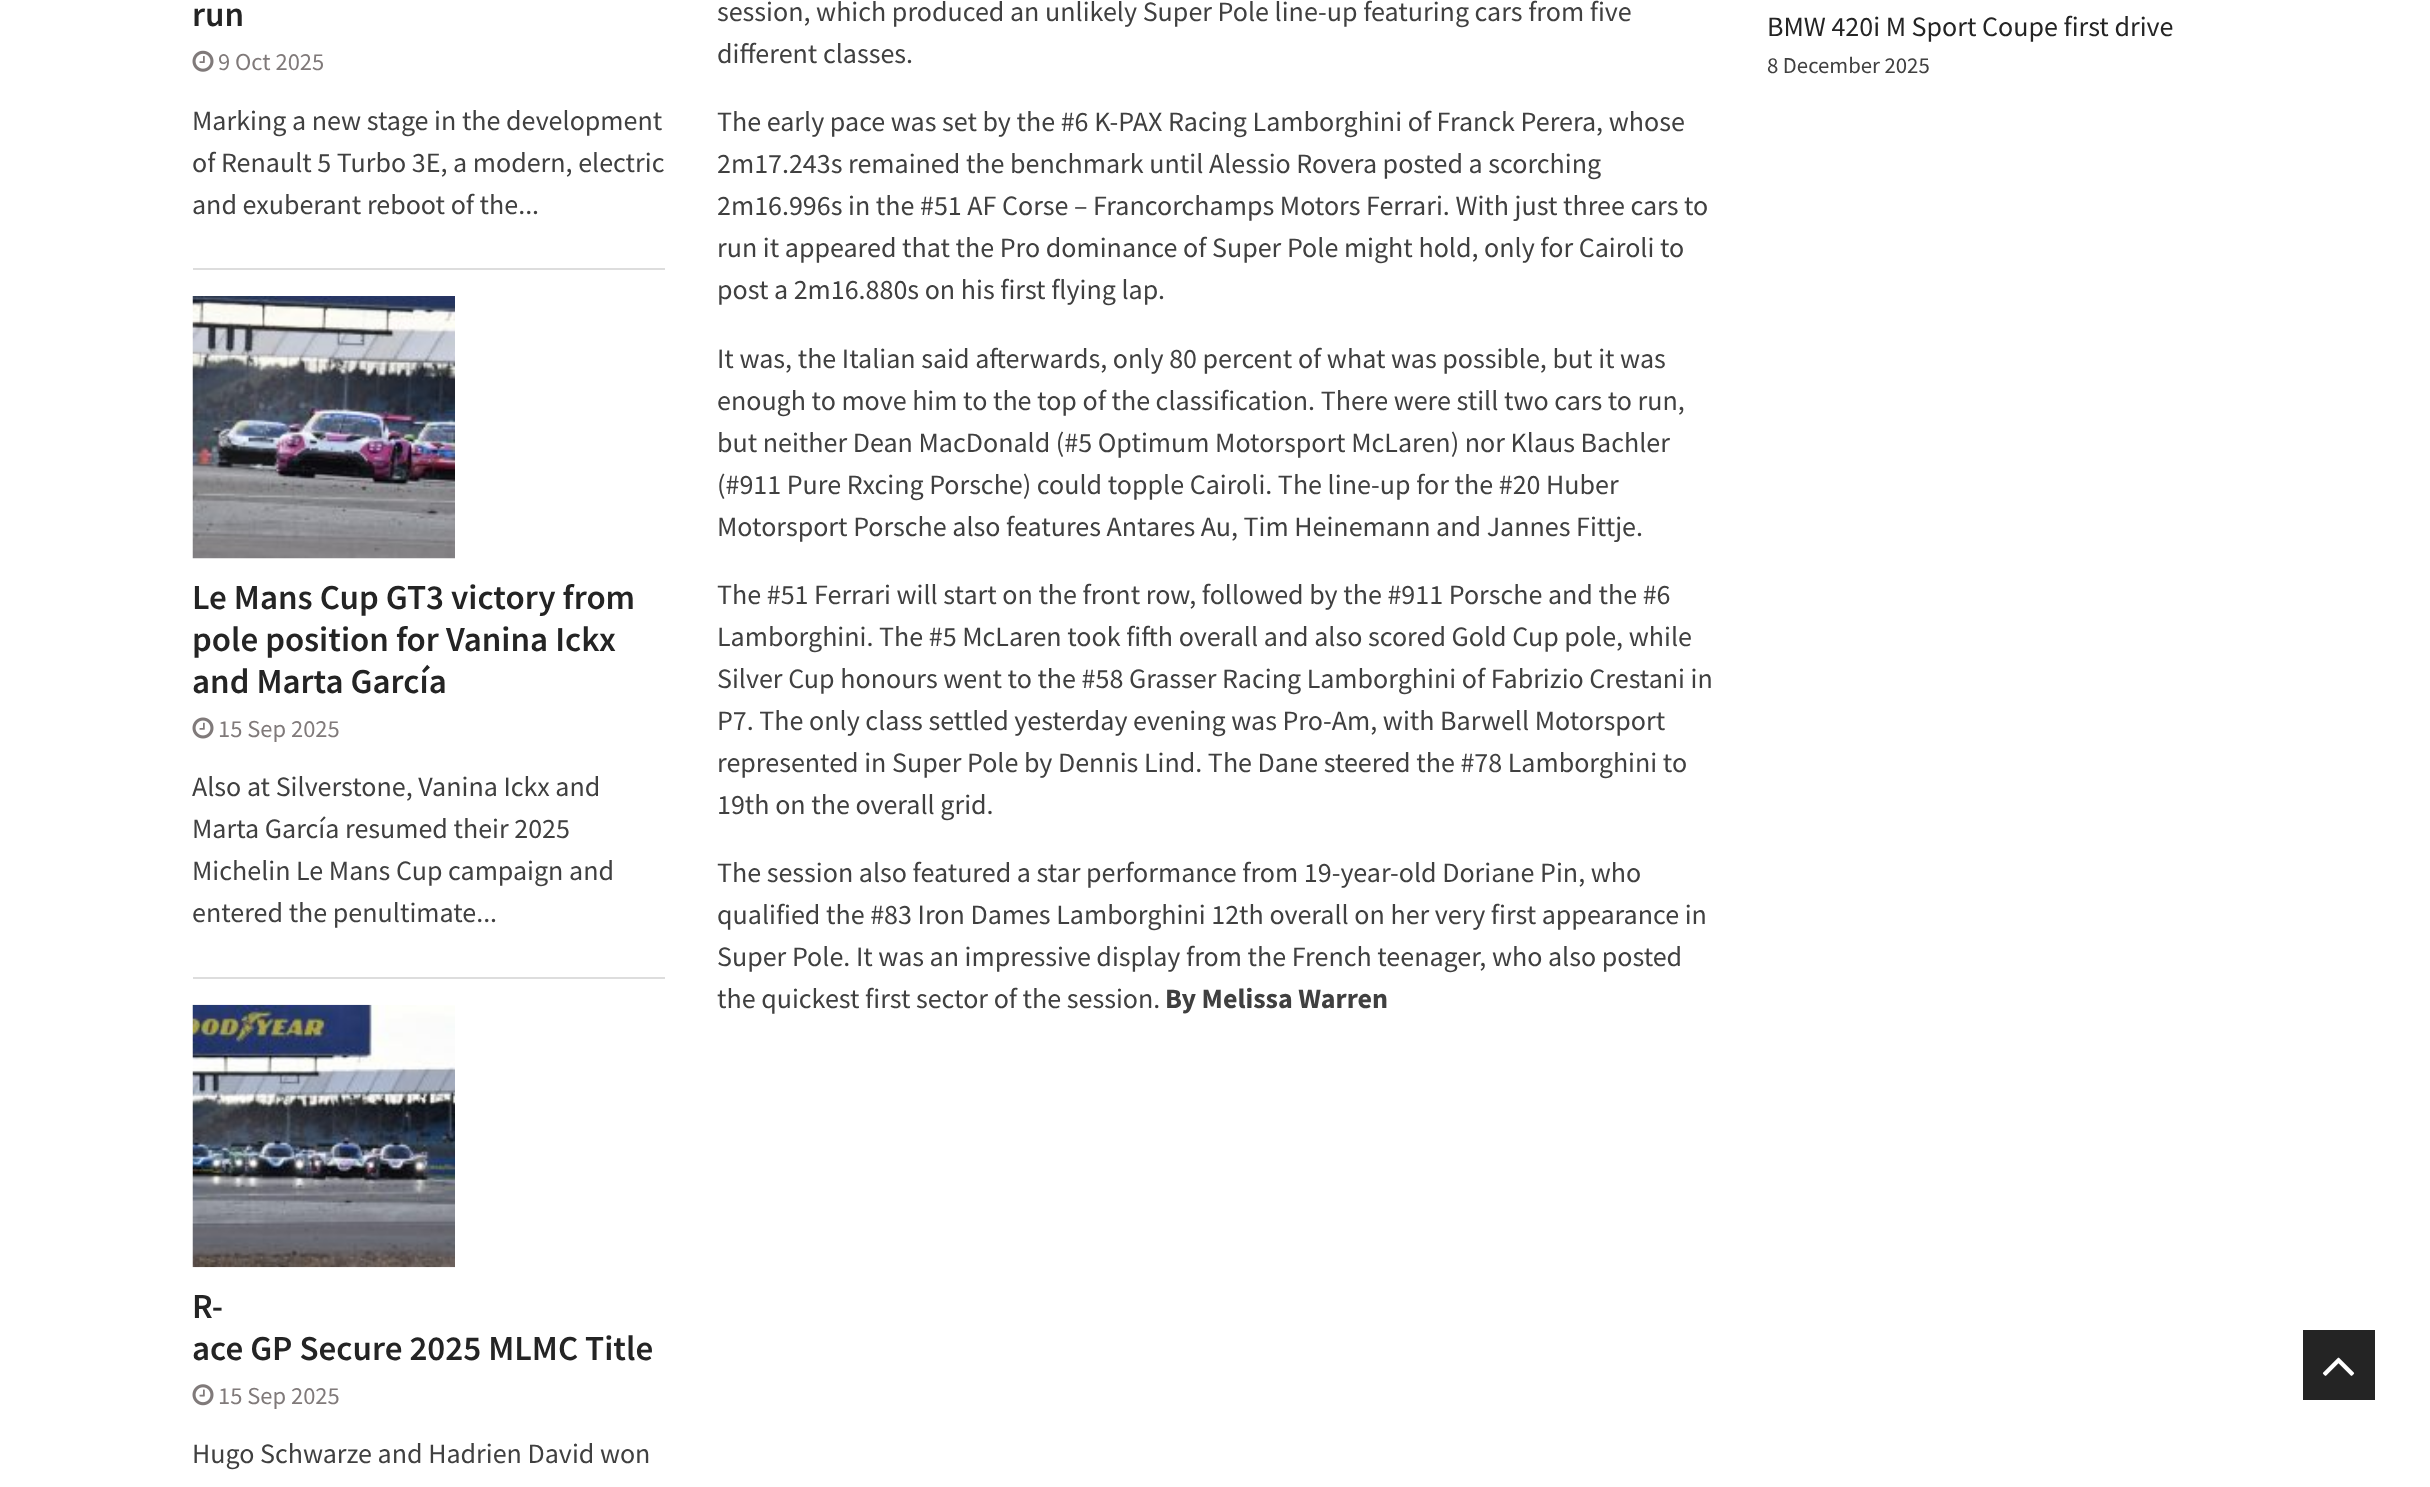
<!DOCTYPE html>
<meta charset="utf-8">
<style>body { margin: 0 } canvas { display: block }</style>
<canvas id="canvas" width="2430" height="1487"></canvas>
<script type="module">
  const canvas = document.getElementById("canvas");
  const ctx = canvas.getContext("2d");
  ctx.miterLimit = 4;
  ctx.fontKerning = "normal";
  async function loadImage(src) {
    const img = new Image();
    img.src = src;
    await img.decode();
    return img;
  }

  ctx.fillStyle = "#ffffff";
  ctx.fillRect(0, 0, 2430, 1487);
  ctx.fillStyle = "#dddddd";
  ctx.fillRect(193, 268, 472, 2);
  ctx.font = "600 35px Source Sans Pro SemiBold";
  ctx.fillStyle = "#242424";
  ctx.fillText("run", 192, 26);
  ctx.drawImage(await loadImage("img1.png"), 192, 50, 22, 22);
  ctx.font = "24.5px Source Sans Pro";
  ctx.fillStyle = "#807a7a";
  ctx.fillText("9 Oct 2025", 218, 70);
  ctx.font = "28px Source Sans Pro";
  ctx.fillStyle = "#404040";
  ctx.fillText("Marking a new stage in the development", 192, 130);
  ctx.fillText("of Renault 5 Turbo 3E, a modern, electric", 192, 172);
  ctx.fillText("and exuberant reboot of the...", 192, 214);
  ctx.drawImage(await loadImage("img2.png"), 192, 296, 263, 263);
  ctx.fillStyle = "#dddddd";
  ctx.fillRect(193, 977, 472, 2);
  ctx.font = "600 35px Source Sans Pro SemiBold";
  ctx.fillStyle = "#242424";
  ctx.fillText("Le Mans Cup GT3 victory from", 192, 609);
  ctx.fillText("pole position for Vanina Ickx", 192, 651);
  ctx.fillText("and Marta García", 192, 693);
  ctx.drawImage(await loadImage("img3.png"), 192, 717, 22, 22);
  ctx.font = "24.5px Source Sans Pro";
  ctx.fillStyle = "#807a7a";
  ctx.fillText("15 Sep 2025", 218, 737);
  ctx.font = "28px Source Sans Pro";
  ctx.fillStyle = "#404040";
  ctx.fillText("Also at Silverstone, Vanina Ickx and", 192, 796);
  ctx.fillText("Marta García resumed their 2025", 192, 838);
  ctx.fillText("Michelin Le Mans Cup campaign and", 192, 880);
  ctx.fillText("entered the penultimate...", 192, 922);
  ctx.drawImage(await loadImage("img4.png"), 192, 1004, 263, 264);
  ctx.font = "600 35px Source Sans Pro SemiBold";
  ctx.fillStyle = "#242424";
  ctx.fillText("R-", 192, 1318);
  ctx.fillText("ace GP Secure 2025 MLMC Title", 192, 1360);
  ctx.drawImage(await loadImage("img5.png"), 192, 1384, 22, 22);
  ctx.font = "24.5px Source Sans Pro";
  ctx.fillStyle = "#807a7a";
  ctx.fillText("15 Sep 2025", 218, 1404);
  ctx.font = "28px Source Sans Pro";
  ctx.fillStyle = "#404040";
  ctx.fillText("Hugo Schwarze and Hadrien David won", 192, 1463);
  ctx.fillText("session, which produced an unlikely Super Pole line-up featuring cars from five", 717, 21);
  ctx.fillText("different classes.", 717, 63);
  ctx.fillText("The early pace was set by the #6 K-PAX Racing Lamborghini of Franck Perera, whose", 717, 131);
  ctx.fillText("2m17.243s remained the benchmark until Alessio Rovera posted a scorching", 717, 173);
  ctx.fillText("2m16.996s in the #51 AF Corse – Francorchamps Motors Ferrari. With just three cars to", 717, 215);
  ctx.fillText("run it appeared that the Pro dominance of Super Pole might hold, only for Cairoli to", 717, 257);
  ctx.fillText("post a 2m16.880s on his first flying lap.", 717, 299);
  ctx.fillText("It was, the Italian said afterwards, only 80 percent of what was possible, but it was", 717, 368);
  ctx.fillText("enough to move him to the top of the classification. There were still two cars to run,", 717, 410);
  ctx.fillText("but neither Dean MacDonald (#5 Optimum Motorsport McLaren) nor Klaus Bachler", 717, 452);
  ctx.fillText("(#911 Pure Rxcing Porsche) could topple Cairoli. The line-up for the #20 Huber", 717, 494);
  ctx.fillText("Motorsport Porsche also features Antares Au, Tim Heinemann and Jannes Fittje.", 717, 536);
  ctx.fillText("The #51 Ferrari will start on the front row, followed by the #911 Porsche and the #6", 717, 604);
  ctx.fillText("Lamborghini. The #5 McLaren took fifth overall and also scored Gold Cup pole, while", 717, 646);
  ctx.fillText("Silver Cup honours went to the #58 Grasser Racing Lamborghini of Fabrizio Crestani in", 717, 688);
  ctx.fillText("P7. The only class settled yesterday evening was Pro-Am, with Barwell Motorsport", 717, 730);
  ctx.fillText("represented in Super Pole by Dennis Lind. The Dane steered the #78 Lamborghini to", 717, 772);
  ctx.fillText("19th on the overall grid.", 717, 814);
  ctx.fillText("The session also featured a star performance from 19-year-old Doriane Pin, who", 717, 882);
  ctx.fillText("qualified the #83 Iron Dames Lamborghini 12th overall on her very first appearance in", 717, 924);
  ctx.fillText("Super Pole. It was an impressive display from the French teenager, who also posted", 717, 966);
  ctx.fillText("the quickest first sector of the session.", 717, 1008);
  ctx.font = "bold 28px Source Sans Pro";
  ctx.fillText("By Melissa Warren", 1165, 1008);
  ctx.font = "28px Source Sans Pro";
  ctx.fillStyle = "#242424";
  ctx.fillText("BMW 420i M Sport Coupe first drive", 1767, 36);
  ctx.font = "22.75px Source Sans Pro";
  ctx.fillStyle = "#404040";
  ctx.fillText("8 December 2025", 1767, 73);
  ctx.fillStyle = "#242424";
  ctx.fillRect(2303, 1330, 72, 70);
  ctx.drawImage(await loadImage("img6.png"), 2322, 1357, 33, 19);
</script>
